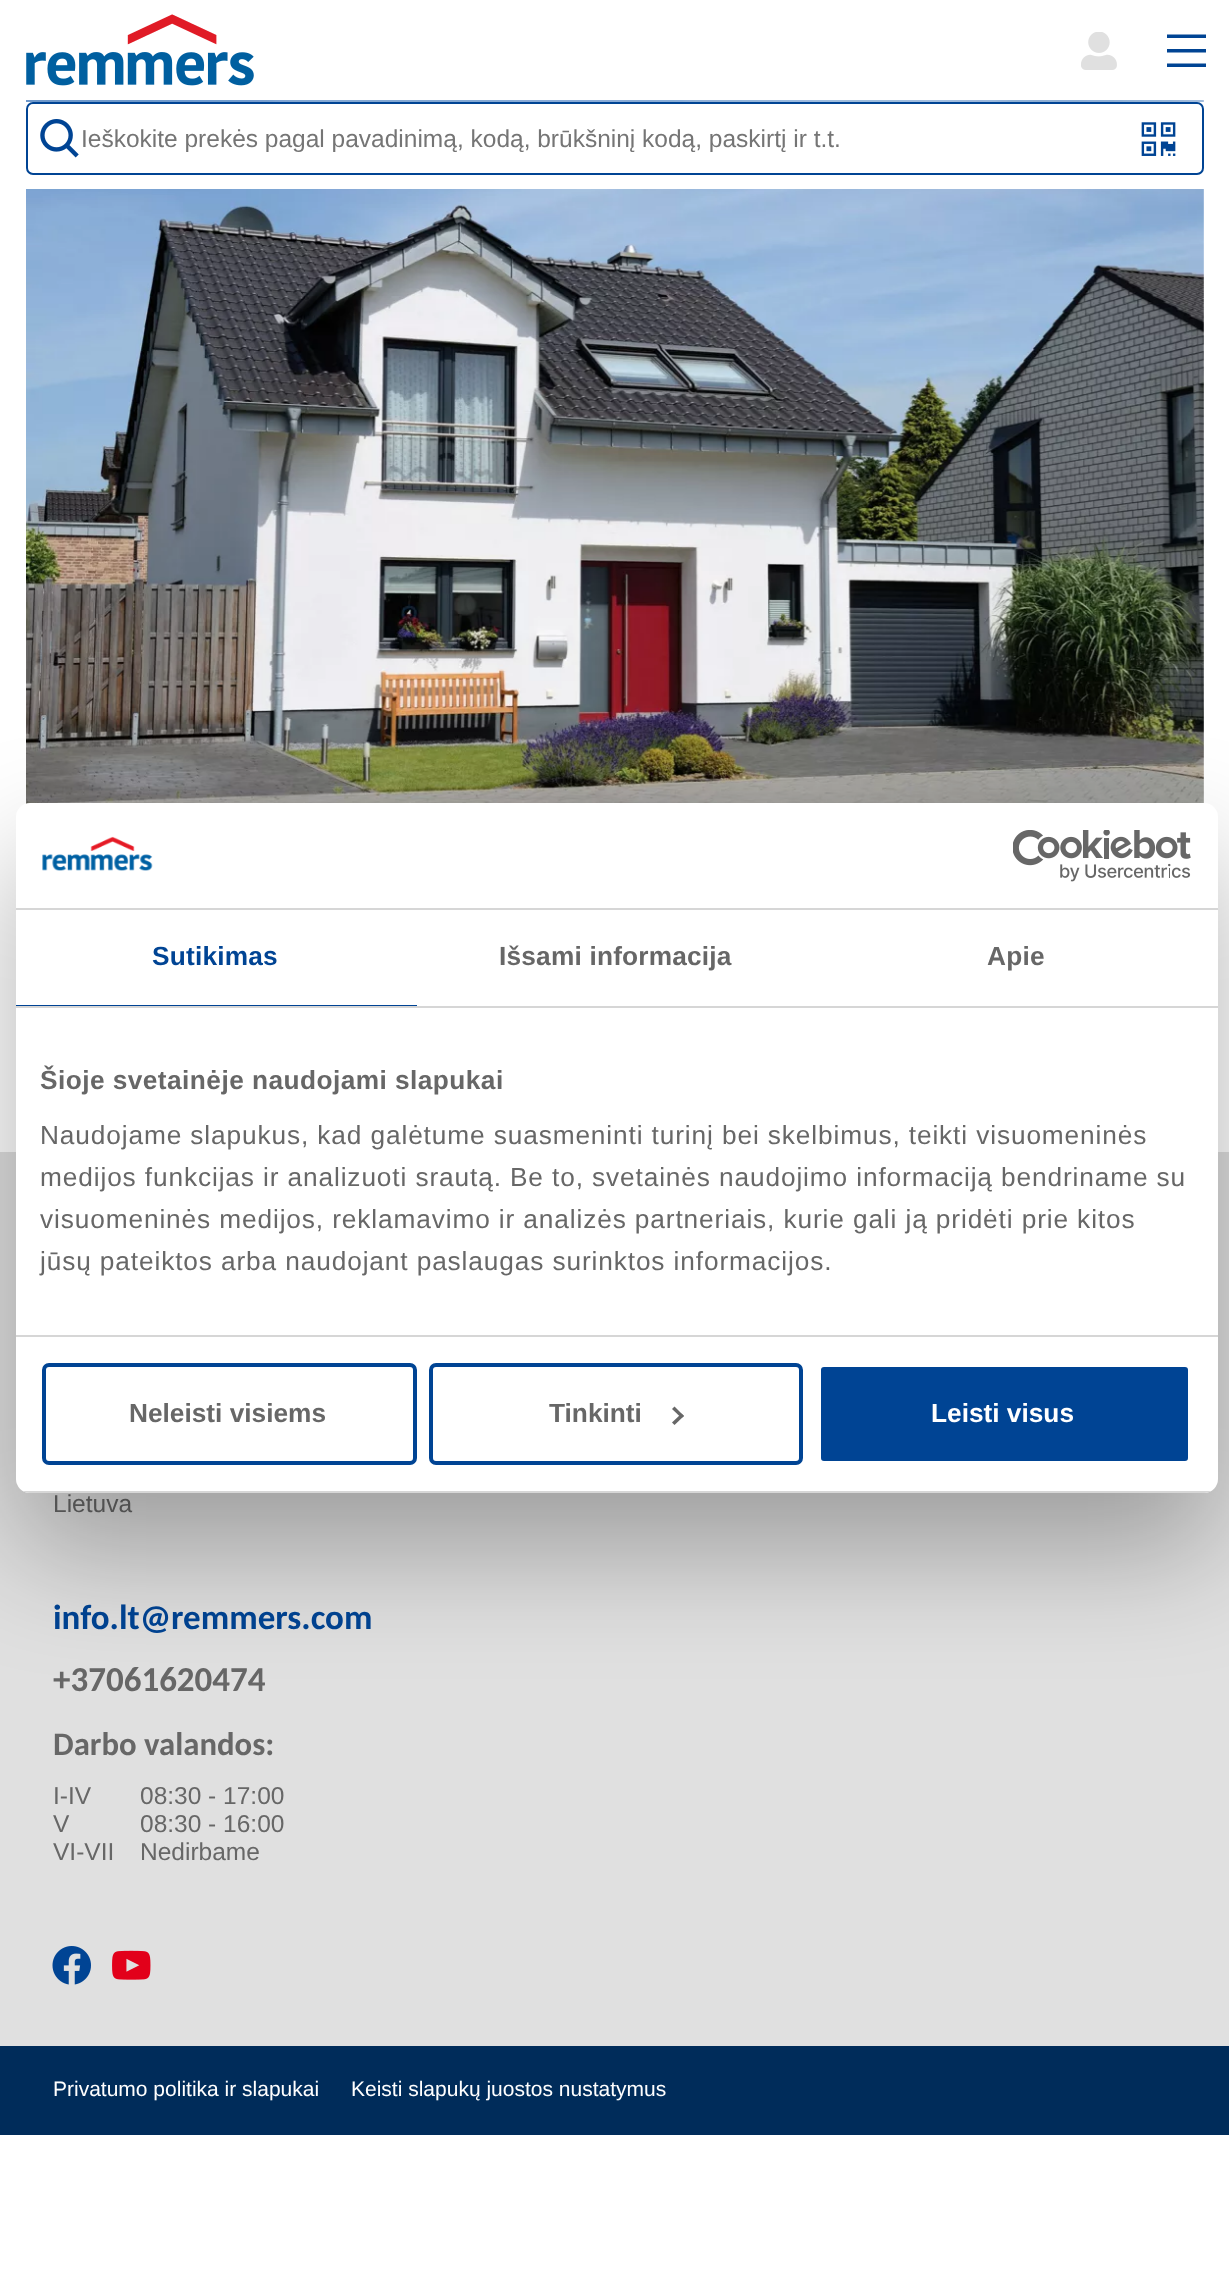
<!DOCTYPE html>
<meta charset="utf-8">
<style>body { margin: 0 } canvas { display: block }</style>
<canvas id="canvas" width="1229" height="2294"></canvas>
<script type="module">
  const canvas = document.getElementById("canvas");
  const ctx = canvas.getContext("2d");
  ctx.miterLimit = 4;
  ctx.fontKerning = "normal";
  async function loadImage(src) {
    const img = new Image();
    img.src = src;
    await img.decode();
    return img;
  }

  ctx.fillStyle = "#ffffff";
  ctx.fillRect(0, 0, 1229, 2294);
  ctx.drawImage(await loadImage("img1.png"), 26, 100, 1178, 704);
  ctx.drawImage(await loadImage("img2.png"), 26, 14, 228, 72);
  ctx.drawImage(await loadImage("img3.png"), 1081, 32, 36, 38);
  ctx.fillStyle = "#004494";
  ctx.beginPath();
  ctx.moveTo(1167, 49);
  ctx.lineTo(1206, 49);
  ctx.lineTo(1206, 52.5);
  ctx.lineTo(1167, 52.5);
  ctx.closePath();
  ctx.moveTo(1167, 34.5);
  ctx.lineTo(1206, 34.5);
  ctx.lineTo(1206, 38);
  ctx.lineTo(1167, 38);
  ctx.closePath();
  ctx.moveTo(1167, 63.5);
  ctx.lineTo(1206, 63.5);
  ctx.lineTo(1206, 67);
  ctx.lineTo(1167, 67);
  ctx.closePath();
  ctx.fill();
  ctx.fillStyle = "#ffffff";
  ctx.fillRect(26, 102, 1178, 87);
  ctx.beginPath();
  ctx.roundRect(27, 103, 1176, 71, 6);
  ctx.strokeStyle = "#004494";
  ctx.lineWidth = 2;
  ctx.stroke();
  ctx.drawImage(await loadImage("img4.png"), 40, 119, 39, 39);
  ctx.save();
  ctx.beginPath();
  ctx.rect(81, 124, 964, 28);
  ctx.clip();
  ctx.font = "24.5px Liberation Sans";
  ctx.fillStyle = "#757575";
  ctx.fillText("Ieškokite prekės pagal pavadinimą, kodą, brūkšninį kodą, paskirtį ir t.t.", 81, 147);
  ctx.restore();
  ctx.drawImage(await loadImage("img5.png"), 1141, 122, 35, 34);
  ctx.fillStyle = "#e0e0e0";
  ctx.fillRect(0, 1152, 1229, 894);
  ctx.font = "24.5px Liberation Sans";
  ctx.fillStyle = "#676767";
  ctx.fillText("Lietuva", 53, 1512);
  ctx.font = "bold 35px Carlito";
  ctx.fillStyle = "#004494";
  ctx.fillText("info.lt@remmers.com", 53, 1629);
  ctx.fillStyle = "#676767";
  ctx.fillText("+37061620474", 53, 1691);
  ctx.font = "bold 32.75px Carlito";
  ctx.fillText("Darbo valandos:", 53, 1755);
  ctx.font = "24.5px Liberation Sans";
  ctx.fillText("I-IV", 53, 1804);
  ctx.fillText("08:30 - 17:00", 140, 1804);
  ctx.fillText("V", 53, 1832);
  ctx.fillText("08:30 - 16:00", 140, 1832);
  ctx.fillText("VI-VII", 53, 1860);
  ctx.fillText("Nedirbame", 140, 1860);
  ctx.drawImage(await loadImage("img6.png"), 52, 1946, 39, 39);
  ctx.drawImage(await loadImage("img7.png"), 112, 1950, 39, 30);
  ctx.fillStyle = "#002c5a";
  ctx.fillRect(0, 2046, 1229, 89);
  ctx.font = "21px Liberation Sans";
  ctx.fillStyle = "#ffffff";
  ctx.fillText("Privatumo politika ir slapukai", 53, 2096);
  ctx.fillText("Keisti slapukų juostos nustatymus", 351, 2096);
  ctx.fillStyle = "rgba(0, 0, 0, 0.3)";
  ctx.filter = "blur(59.5px)";
  ctx.beginPath();
  ctx.roundRect(16, 859, 1202, 690, 14);
  ctx.fill();
  ctx.filter = "none";
  ctx.fillStyle = "#ffffff";
  ctx.beginPath();
  ctx.roundRect(16, 803, 1202, 690, 14);
  ctx.fill();
  ctx.fillStyle = "#d6d6d6";
  ctx.fillRect(16, 908, 1202, 2);
  ctx.drawImage(await loadImage("img8.png"), 42, 836, 111, 35);
  ctx.drawImage(await loadImage("img9.png"), 1013, 830, 178, 52);
  ctx.fillRect(16, 1006, 1202, 2);
  ctx.fillStyle = "#004494";
  ctx.fillRect(16, 1005, 401, 1);
  ctx.letterSpacing = "0.2px";
  ctx.font = "bold 26.25px Liberation Sans";
  ctx.fillText("Sutikimas", 152, 965);
  ctx.fillStyle = "#676767";
  ctx.fillText("Išsami informacija", 499, 965);
  ctx.fillText("Apie", 987, 965);
  ctx.fillStyle = "#d6d6d6";
  ctx.fillRect(16, 1335, 1202, 2);
  ctx.letterSpacing = "0.45px";
  ctx.fillStyle = "#676767";
  ctx.fillText("Šioje svetainėje naudojami slapukai", 40, 1089);
  ctx.letterSpacing = "0.88px";
  ctx.font = "26.25px Liberation Sans";
  ctx.fillText("Naudojame slapukus, kad galėtume suasmeninti turinį bei skelbimus, teikti visuomeninės", 40, 1144);
  ctx.fillText("medijos funkcijas ir analizuoti srautą. Be to, svetainės naudojimo informaciją bendriname su", 40, 1186);
  ctx.fillText("visuomeninės medijos, reklamavimo ir analizės partneriais, kurie gali ją pridėti prie kitos", 40, 1228);
  ctx.fillText("jūsų pateiktos arba naudojant paslaugas surinktos informacijos.", 40, 1270);
  ctx.save();
  ctx.beginPath();
  ctx.roundRect(16, 803, 1202, 690, 14);
  ctx.clip();
  ctx.fillStyle = "#d6d6d6";
  ctx.fillRect(16, 1491, 1202, 2);
  ctx.restore();
  ctx.beginPath();
  ctx.roundRect(44, 1365, 371, 98, 5);
  ctx.lineWidth = 4;
  ctx.stroke();
  ctx.letterSpacing = "0px";
  ctx.font = "bold 26.25px Liberation Sans";
  ctx.fillText("Neleisti visiems", 129, 1422);
  ctx.beginPath();
  ctx.roundRect(431, 1365, 370, 98, 5);
  ctx.stroke();
  ctx.fillText("Tinkinti", 549, 1422);
  ctx.beginPath();
  ctx.moveTo(674.5, 1406.5);
  ctx.lineTo(684, 1416);
  ctx.lineTo(681.5, 1418);
  ctx.lineTo(672, 1409);
  ctx.closePath();
  ctx.fill();
  ctx.beginPath();
  ctx.moveTo(681.5, 1413.5);
  ctx.lineTo(684, 1416);
  ctx.lineTo(674.5, 1425);
  ctx.lineTo(672, 1422.5);
  ctx.closePath();
  ctx.fill();
  ctx.fillStyle = "#004494";
  ctx.beginPath();
  ctx.roundRect(819, 1365, 371, 98, 5);
  ctx.fill();
  ctx.strokeStyle = "#ffffff";
  ctx.stroke();
  ctx.fillStyle = "#ffffff";
  ctx.fillText("Leisti visus", 931, 1422);
</script>
